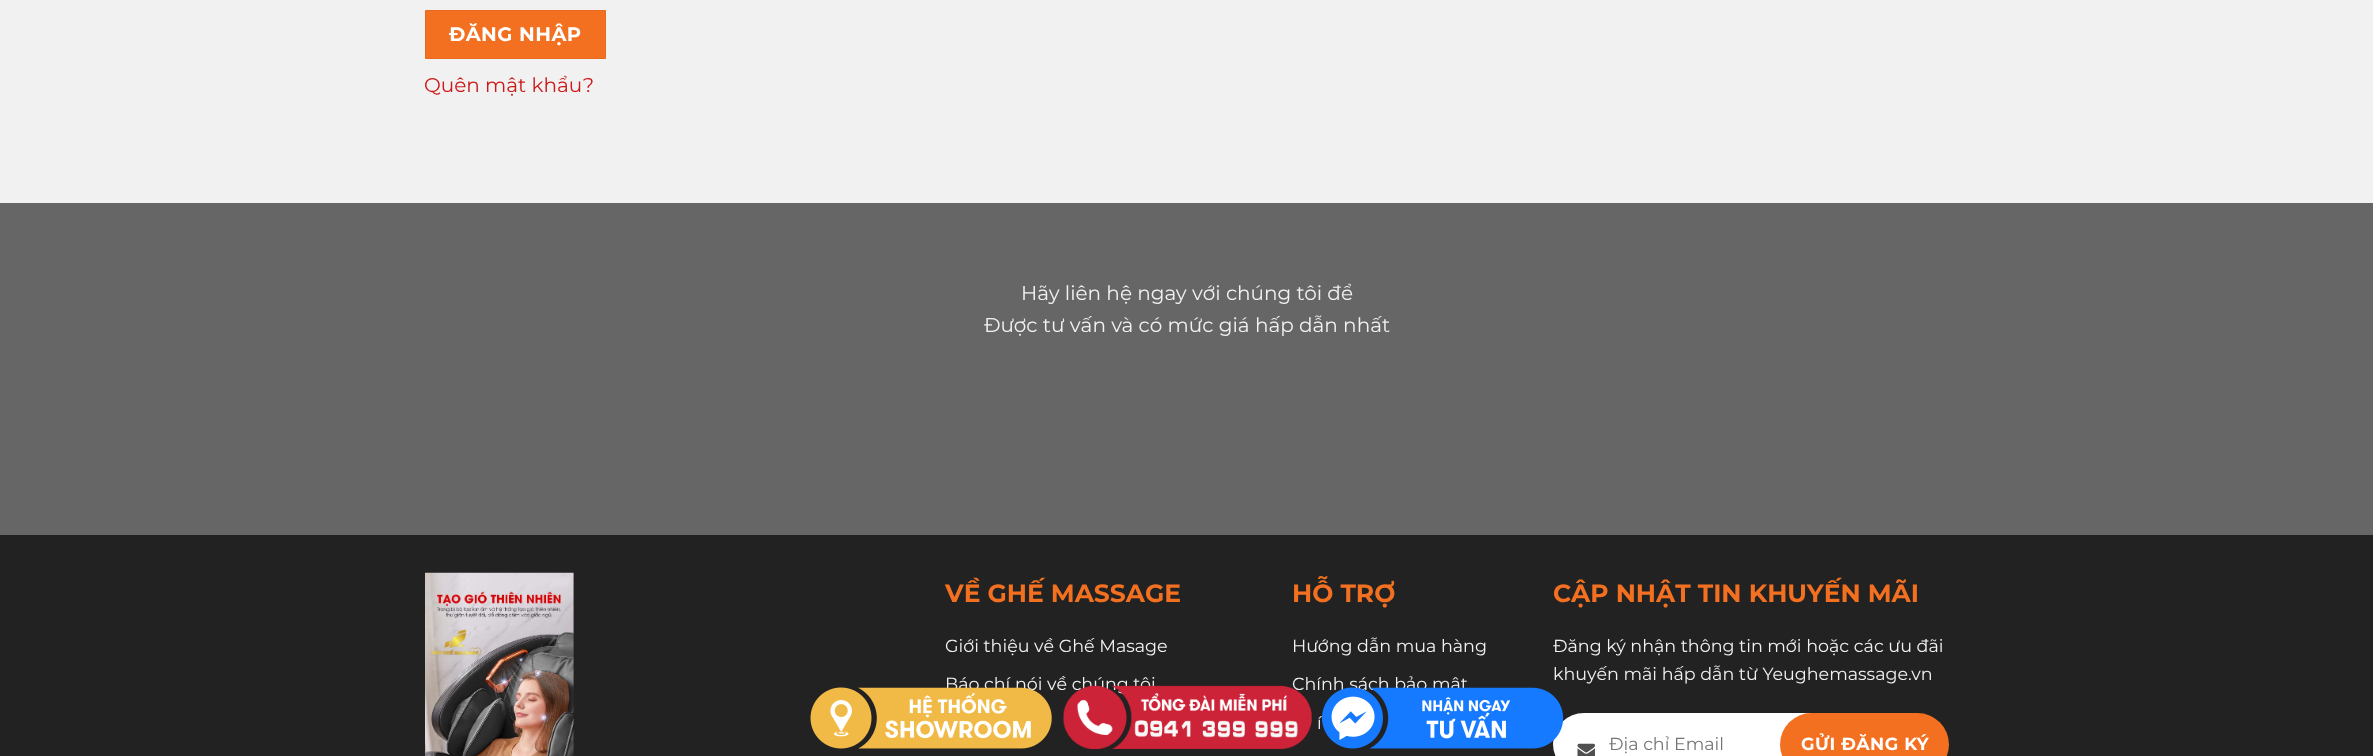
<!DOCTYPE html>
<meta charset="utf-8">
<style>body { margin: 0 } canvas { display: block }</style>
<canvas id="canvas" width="2373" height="756"></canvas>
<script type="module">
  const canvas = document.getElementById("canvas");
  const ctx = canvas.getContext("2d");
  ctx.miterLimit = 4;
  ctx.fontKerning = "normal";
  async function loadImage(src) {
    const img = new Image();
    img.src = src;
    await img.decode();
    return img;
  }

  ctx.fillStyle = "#f1f1f1";
  ctx.fillRect(0, 0, 2373, 756);
  ctx.fillStyle = "#f37021";
  ctx.beginPath();
  ctx.rect(425.5, 10.5, 180, 48);
  ctx.fill();
  ctx.strokeStyle = "#e76a1f";
  ctx.stroke();
  ctx.letterSpacing = "0.5px";
  ctx.font = "bold 19.5px Montserrat";
  ctx.fillStyle = "#ffffff";
  ctx.fillText("ĐĂNG NHẬP", 449, 41);
  ctx.letterSpacing = "0px";
  ctx.font = "20px Montserrat";
  ctx.fillStyle = "#cd1818";
  ctx.fillText("Quên mật khẩu?", 424, 92);
  ctx.fillStyle = "#666666";
  ctx.fillRect(0, 203, 2373, 332);
  ctx.fillStyle = "#f1f1f1";
  ctx.fillText("Hãy liên hệ ngay với chúng tôi để", 1021, 300);
  ctx.fillText("Được tư vấn và có mức giá hấp dẫn nhất", 984, 332);
  ctx.fillStyle = "#222222";
  ctx.fillRect(0, 535, 2373, 221);
  ctx.drawImage(await loadImage("img1.png"), 425, 572, 149, 184);
  ctx.font = "bold 25px Montserrat";
  ctx.fillStyle = "#f37021";
  ctx.fillText("VỀ GHẾ MASSAGE", 945, 602);
  ctx.font = "17.5px Montserrat";
  ctx.fillStyle = "#f1f1f1";
  ctx.fillText("Giới thiệu về Ghế Masage", 945, 652);
  ctx.fillText("Báo chí nói về chúng tôi", 945, 690);
  ctx.font = "bold 25px Montserrat";
  ctx.fillStyle = "#f37021";
  ctx.fillText("HỖ TRỢ", 1292, 602);
  ctx.font = "17.5px Montserrat";
  ctx.fillStyle = "#f1f1f1";
  ctx.fillText("Hướng dẫn mua hàng", 1292, 652);
  ctx.fillText("Chính sách bảo mật", 1292, 690);
  ctx.fillText("í", 1317, 729);
  ctx.font = "bold 25px Montserrat";
  ctx.fillStyle = "#f37021";
  ctx.fillText("CẬP NHẬT TIN KHUYẾN MÃI", 1553, 602);
  ctx.font = "17.5px Montserrat";
  ctx.fillStyle = "#f1f1f1";
  ctx.fillText("Đăng ký nhận thông tin mới hoặc các ưu đãi", 1553, 652);
  ctx.fillText("khuyến mãi hấp dẫn từ Yeughemassage.vn", 1553, 680);
  ctx.fillStyle = "#ffffff";
  ctx.beginPath();
  ctx.roundRect(1553, 713, 348, 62, 31);
  ctx.fill();
  ctx.drawImage(await loadImage("img2.png"), 1577, 743, 18, 13);
  ctx.fillStyle = "#757575";
  ctx.fillText("Địa chỉ Email", 1609, 750);
  ctx.fillStyle = "#f37021";
  ctx.beginPath();
  ctx.roundRect(1780, 713, 169, 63, 31.5);
  ctx.fill();
  ctx.letterSpacing = "0.5px";
  ctx.font = "bold 17.5px Montserrat";
  ctx.fillStyle = "#ffffff";
  ctx.fillText("GỬI ĐĂNG KÝ", 1801, 750);
  ctx.drawImage(await loadImage("img3.png"), 810, 687, 242, 62);
  ctx.drawImage(await loadImage("img4.png"), 1063, 685, 249, 64);
  ctx.drawImage(await loadImage("img5.png"), 1322, 687, 242, 62);
</script>
